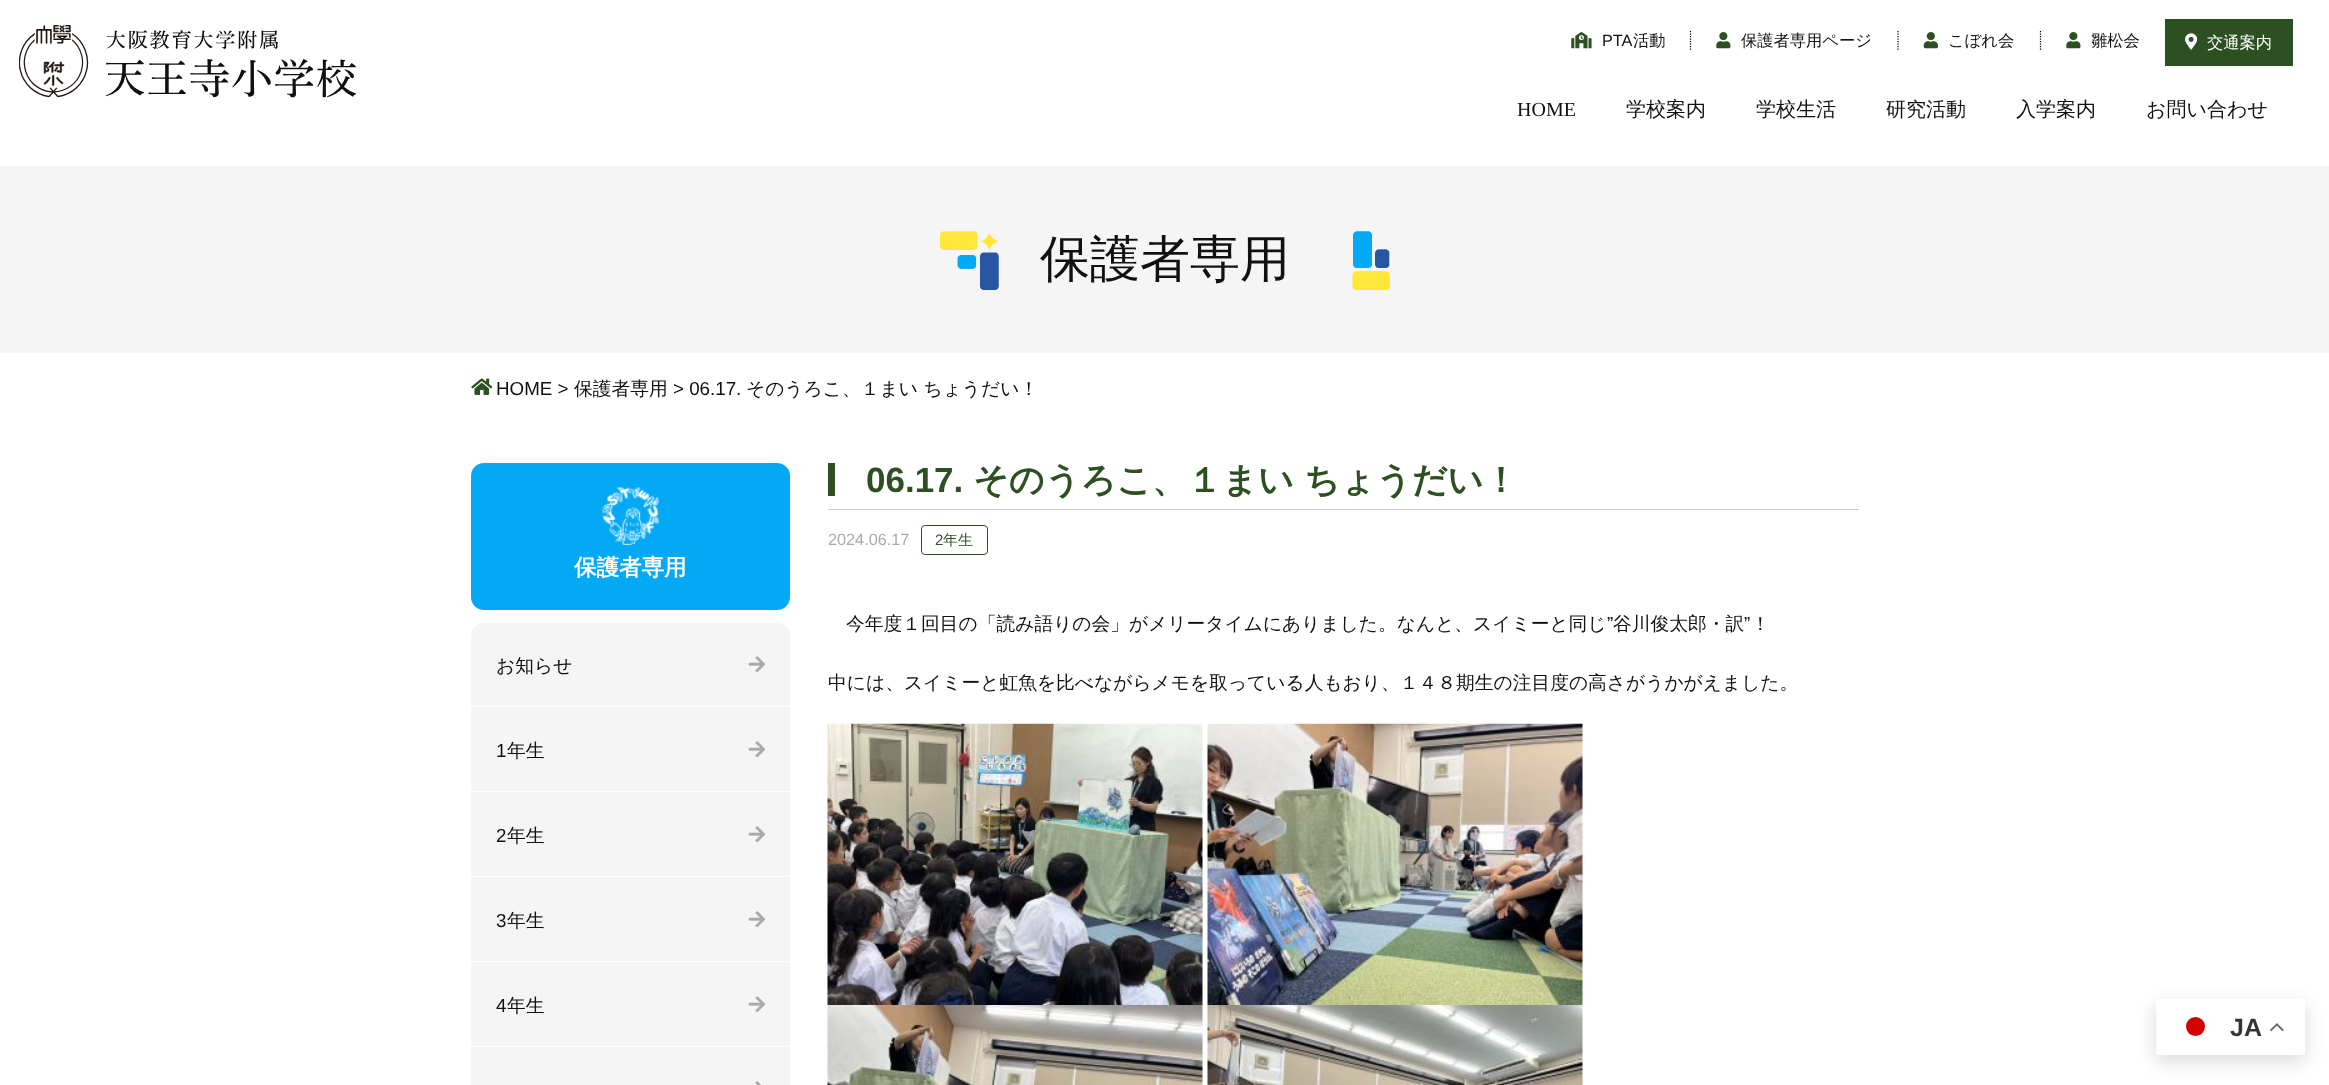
<!DOCTYPE html>
<meta charset="utf-8">
<style>body { margin: 0 } canvas { display: block }</style>
<canvas id="canvas" width="2329" height="1085"></canvas>
<script type="module">
  const canvas = document.getElementById("canvas");
  const ctx = canvas.getContext("2d");
  ctx.miterLimit = 4;
  ctx.fontKerning = "normal";
  async function loadImage(src) {
    const img = new Image();
    img.src = src;
    await img.decode();
    return img;
  }

  ctx.fillStyle = "#ffffff";
  ctx.fillRect(0, 0, 2329, 1085);
  ctx.drawImage(await loadImage("img1.png"), 19, 25, 337, 73);
  ctx.drawImage(await loadImage("img2.png"), 1571, 32, 21, 17);
  ctx.font = "16.25px Liberation Sans";
  ctx.fillStyle = "#111111";
  ctx.fillText("PTA", 1602, 46);
  ctx.font = "500 16.25px WenQuanYi Zen Hei";
  ctx.fillText("活動", 1633, 46);
  ctx.beginPath();
  ctx.moveTo(1690.5, 31);
  ctx.lineTo(1690.5, 51);
  ctx.strokeStyle = "#000000";
  ctx.lineWidth = 1.2;
  ctx.setLineDash([1.25, 1.25]);
  ctx.stroke();
  ctx.drawImage(await loadImage("img3.png"), 1716, 32, 15, 17);
  ctx.fillText("保護者専用ページ", 1741, 46);
  ctx.beginPath();
  ctx.moveTo(1898, 31);
  ctx.lineTo(1898, 51);
  ctx.stroke();
  ctx.drawImage(await loadImage("img4.png"), 1923, 32, 15, 17);
  ctx.fillText("こぼれ会", 1948, 46);
  ctx.beginPath();
  ctx.moveTo(2040.5, 31);
  ctx.lineTo(2040.5, 51);
  ctx.stroke();
  ctx.drawImage(await loadImage("img3.png"), 2066, 32, 15, 17);
  ctx.fillText("雛松会", 2091, 46);
  ctx.fillStyle = "#2d5023";
  ctx.fillRect(2165, 19, 128, 47);
  ctx.drawImage(await loadImage("img5.png"), 2185, 33, 13, 17);
  ctx.fillStyle = "#ffffff";
  ctx.fillText("交通案内", 2207, 48);
  ctx.font = "20px Liberation Serif";
  ctx.fillStyle = "#111111";
  ctx.fillText("HOME", 1517, 116);
  ctx.font = "500 20px WenQuanYi Zen Hei";
  ctx.fillText("学校案内", 1626, 116);
  ctx.fillText("学校生活", 1756, 116);
  ctx.fillText("研究活動", 1886, 116);
  ctx.fillText("入学案内", 2016, 116);
  ctx.fillText("お問い合わせ", 2146, 116);
  ctx.fillStyle = "#f5f5f5";
  ctx.fillRect(0, 166, 2329, 187);
  ctx.drawImage(await loadImage("img6.png"), 940, 231, 59, 59);
  ctx.font = "500 50px WenQuanYi Zen Hei";
  ctx.fillStyle = "#111111";
  ctx.fillText("保護者専用", 1040, 276);
  ctx.drawImage(await loadImage("img7.png"), 1352, 231, 38, 59);
  ctx.drawImage(await loadImage("img8.png"), 471, 378, 22, 17);
  ctx.font = "18.75px Liberation Sans";
  ctx.fillText("HOME >", 496, 395);
  ctx.font = "500 18.75px WenQuanYi Zen Hei";
  ctx.fillText("保護者専用", 574, 395);
  ctx.font = "18.75px Liberation Sans";
  ctx.fillText("> 06.17.", 673, 395);
  ctx.font = "500 18.75px WenQuanYi Zen Hei";
  ctx.fillText("そのうろこ、１まい ちょうだい！", 746, 395);
  ctx.fillStyle = "#03a9f4";
  ctx.beginPath();
  ctx.roundRect(471, 463, 319, 147, 13);
  ctx.fill();
  ctx.drawImage(await loadImage("img9.png"), 602, 487, 57, 58);
  ctx.font = "bold 22.5px WenQuanYi Zen Hei";
  ctx.fillStyle = "#ffffff";
  ctx.fillText("保護者専用", 574, 575);
  ctx.fillStyle = "#f5f5f5";
  ctx.beginPath();
  ctx.roundRect(471, 623, 319, 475, 13);
  ctx.fill();
  ctx.fillStyle = "#ffffff";
  ctx.fillRect(471, 706, 319, 1);
  ctx.font = "500 18.75px WenQuanYi Zen Hei";
  ctx.fillStyle = "#111111";
  ctx.fillText("お知らせ", 496, 672);
  ctx.drawImage(await loadImage("img10.png"), 748, 656, 18, 17);
  ctx.fillStyle = "#ffffff";
  ctx.fillRect(471, 791, 319, 1);
  ctx.font = "18.75px Liberation Sans";
  ctx.fillStyle = "#111111";
  ctx.fillText("1", 496, 757);
  ctx.font = "500 18.75px WenQuanYi Zen Hei";
  ctx.fillText("年生", 507, 757);
  ctx.drawImage(await loadImage("img10.png"), 748, 741, 18, 17);
  ctx.fillStyle = "#ffffff";
  ctx.fillRect(471, 876, 319, 1);
  ctx.font = "18.75px Liberation Sans";
  ctx.fillStyle = "#111111";
  ctx.fillText("2", 496, 842);
  ctx.font = "500 18.75px WenQuanYi Zen Hei";
  ctx.fillText("年生", 507, 842);
  ctx.drawImage(await loadImage("img10.png"), 748, 826, 18, 17);
  ctx.fillStyle = "#ffffff";
  ctx.fillRect(471, 961, 319, 1);
  ctx.font = "18.75px Liberation Sans";
  ctx.fillStyle = "#111111";
  ctx.fillText("3", 496, 927);
  ctx.font = "500 18.75px WenQuanYi Zen Hei";
  ctx.fillText("年生", 507, 927);
  ctx.drawImage(await loadImage("img10.png"), 748, 911, 18, 17);
  ctx.fillStyle = "#ffffff";
  ctx.fillRect(471, 1046, 319, 1);
  ctx.font = "18.75px Liberation Sans";
  ctx.fillStyle = "#111111";
  ctx.fillText("4", 496, 1012);
  ctx.font = "500 18.75px WenQuanYi Zen Hei";
  ctx.fillText("年生", 507, 1012);
  ctx.drawImage(await loadImage("img10.png"), 748, 996, 18, 17);
  ctx.drawImage(await loadImage("img11.png"), 755, 1081, 6, 4);
  ctx.fillStyle = "#cccccc";
  ctx.fillRect(828, 509, 1031, 1);
  ctx.fillStyle = "#2d5023";
  ctx.fillRect(828, 463, 7, 33);
  ctx.font = "bold 35px Liberation Sans";
  ctx.fillText("06.17.", 866, 492);
  ctx.font = "bold 35px WenQuanYi Zen Hei";
  ctx.fillText("そのうろこ、１まい ちょうだい！", 973, 492);
  ctx.font = "16.25px Liberation Sans";
  ctx.fillStyle = "#aaaaaa";
  ctx.fillText("2024.06.17", 828, 545);
  ctx.beginPath();
  ctx.roundRect(921.5, 525.5, 66, 29, 3.5);
  ctx.strokeStyle = "#2d5023";
  ctx.lineWidth = 1;
  ctx.setLineDash([]);
  ctx.stroke();
  ctx.font = "15px Liberation Sans";
  ctx.fillStyle = "#2d5023";
  ctx.fillText("2", 935, 545);
  ctx.font = "500 15px WenQuanYi Zen Hei";
  ctx.fillText("年生", 943, 545);
  ctx.font = "500 18.75px WenQuanYi Zen Hei";
  ctx.fillStyle = "#111111";
  ctx.fillText("今年度１回目の「読み語りの会」がメリータイムにありました。なんと、スイミーと同じ", 846, 630);
  ctx.font = "18.75px Liberation Sans";
  ctx.fillText("”", 1607, 630);
  ctx.font = "500 18.75px WenQuanYi Zen Hei";
  ctx.fillText("谷川俊太郎・訳", 1613, 630);
  ctx.font = "18.75px Liberation Sans";
  ctx.fillText("”", 1744, 630);
  ctx.font = "500 18.75px WenQuanYi Zen Hei";
  ctx.fillText("！", 1751, 630);
  ctx.fillText("中には、スイミーと虹魚を比べながらメモを取っている人もおり、１４８期生の注目度の高さがうかがえました。", 828, 689);
  ctx.drawImage(await loadImage("img12.png"), 827, 723, 376, 282);
  ctx.drawImage(await loadImage("img13.png"), 1207, 723, 376, 282);
  ctx.drawImage(await loadImage("img14.png"), 827, 1005, 376, 80);
  ctx.drawImage(await loadImage("img15.png"), 1207, 1005, 376, 80);
  ctx.fillStyle = "rgba(0, 0, 0, 0.15)";
  ctx.filter = "blur(9.5px)";
  ctx.beginPath();
  ctx.roundRect(2156, 1005, 149, 56, 2.5);
  ctx.fill();
  ctx.filter = "none";
  ctx.fillStyle = "#ffffff";
  ctx.beginPath();
  ctx.roundRect(2156, 999, 149, 56, 2.5);
  ctx.fill();
  ctx.fillStyle = "#d30000";
  ctx.beginPath();
  ctx.arc(2195.5, 1026.5, 9.5, 0, Math.PI * 2);
  ctx.fill();
  ctx.font = "bold 25px Liberation Sans";
  ctx.fillStyle = "#333333";
  ctx.fillText("JA", 2230, 1036);
  ctx.drawImage(await loadImage("img16.png"), 2270, 1023, 14, 9);
</script>
